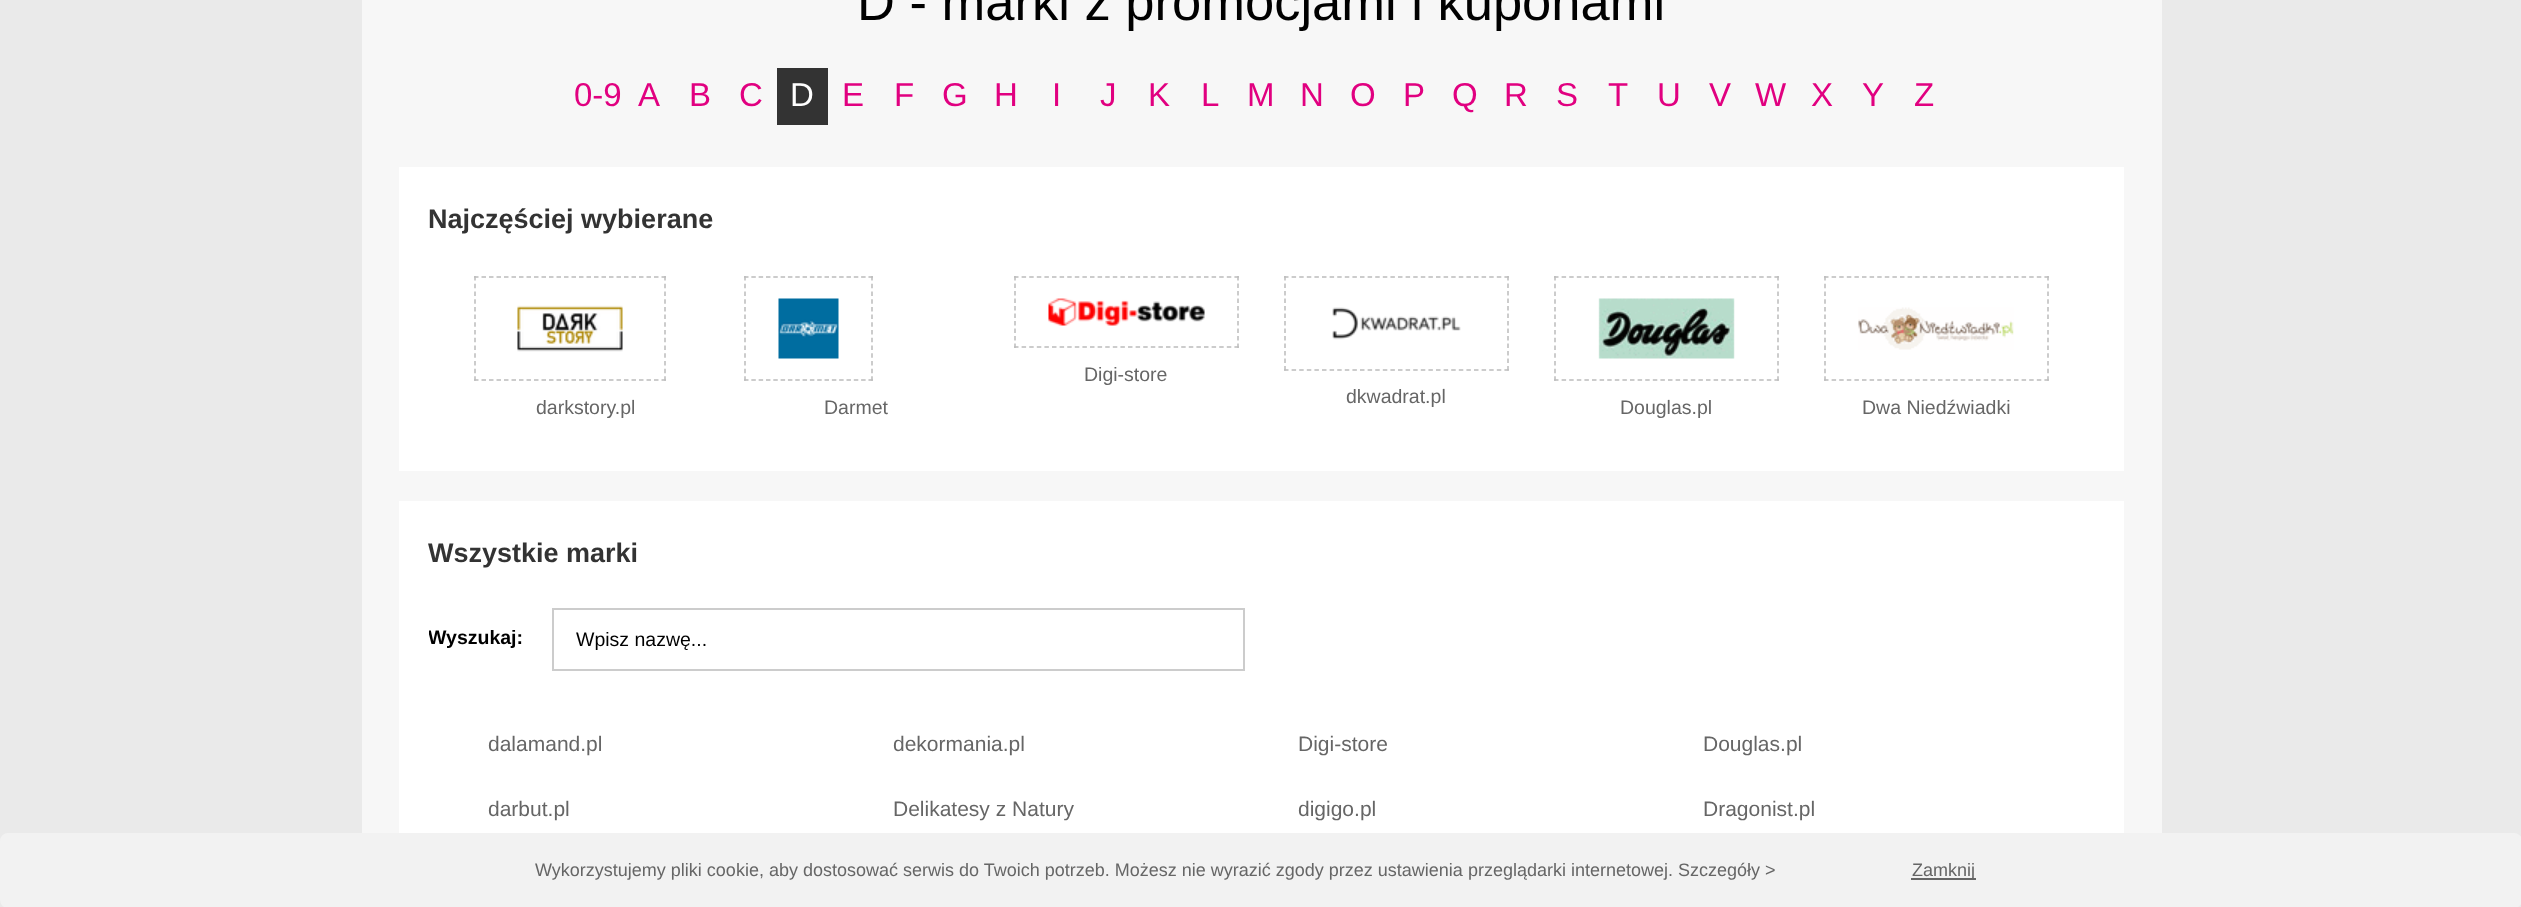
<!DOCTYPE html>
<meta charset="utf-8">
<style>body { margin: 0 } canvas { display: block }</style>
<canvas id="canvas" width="2521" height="907"></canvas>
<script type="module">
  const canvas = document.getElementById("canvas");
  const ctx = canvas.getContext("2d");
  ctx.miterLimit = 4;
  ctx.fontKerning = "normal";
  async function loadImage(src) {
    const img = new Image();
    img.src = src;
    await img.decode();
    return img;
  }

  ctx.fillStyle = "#eaeaea";
  ctx.fillRect(0, 0, 2521, 907);
  ctx.fillStyle = "#f7f7f7";
  ctx.fillRect(362, 0, 1800, 833);
  ctx.font = "52.5px Liberation Sans";
  ctx.fillStyle = "#000000";
  ctx.fillText("D - marki z promocjami i kuponami", 857, 20);
  ctx.font = "33px Liberation Sans";
  ctx.fillStyle = "#e10080";
  ctx.fillText("0-9", 574, 106);
  ctx.fillText("A", 638, 106);
  ctx.fillText("B", 689, 106);
  ctx.fillText("C", 739, 106);
  ctx.fillStyle = "#333333";
  ctx.fillRect(777, 68, 51, 57);
  ctx.fillStyle = "#ffffff";
  ctx.fillText("D", 790, 106);
  ctx.fillStyle = "#e10080";
  ctx.fillText("E", 842, 106);
  ctx.fillText("F", 894, 106);
  ctx.fillText("G", 942, 106);
  ctx.fillText("H", 994, 106);
  ctx.fillText("I", 1052, 106);
  ctx.fillText("J", 1100, 106);
  ctx.fillText("K", 1148, 106);
  ctx.fillText("L", 1201, 106);
  ctx.fillText("M", 1247, 106);
  ctx.fillText("N", 1300, 106);
  ctx.fillText("O", 1350, 106);
  ctx.fillText("P", 1403, 106);
  ctx.fillText("Q", 1452, 106);
  ctx.fillText("R", 1504, 106);
  ctx.fillText("S", 1556, 106);
  ctx.fillText("T", 1608, 106);
  ctx.fillText("U", 1657, 106);
  ctx.fillText("V", 1709, 106);
  ctx.fillText("W", 1755, 106);
  ctx.fillText("X", 1811, 106);
  ctx.fillText("Y", 1862, 106);
  ctx.fillText("Z", 1914, 106);
  ctx.fillStyle = "#ffffff";
  ctx.fillRect(399, 167, 1725, 304);
  ctx.font = "bold 27px Liberation Sans";
  ctx.fillStyle = "#333333";
  ctx.fillText("Najczęściej wybierane", 428, 228);
  ctx.beginPath();
  ctx.moveTo(1014, 277);
  ctx.lineTo(1239, 277);
  ctx.strokeStyle = "#bcbcbc";
  ctx.lineWidth = 1.5;
  ctx.setLineDash([4.5, 3.1]);
  ctx.stroke();
  ctx.beginPath();
  ctx.moveTo(1238, 276);
  ctx.lineTo(1238, 348);
  ctx.setLineDash([4.5, 3]);
  ctx.stroke();
  ctx.beginPath();
  ctx.moveTo(1014, 347);
  ctx.lineTo(1239, 347);
  ctx.setLineDash([4.5, 3.1]);
  ctx.stroke();
  ctx.beginPath();
  ctx.moveTo(1015, 276);
  ctx.lineTo(1015, 348);
  ctx.setLineDash([4.5, 3]);
  ctx.stroke();
  ctx.drawImage(await loadImage("img1.png"), 1048, 298, 157, 28);
  ctx.font = "19.5px Liberation Sans";
  ctx.fillStyle = "#666666";
  ctx.fillText("Digi-store", 1084, 381);
  ctx.beginPath();
  ctx.moveTo(474, 277);
  ctx.lineTo(666, 277);
  ctx.stroke();
  ctx.beginPath();
  ctx.moveTo(665, 276);
  ctx.lineTo(665, 381);
  ctx.setLineDash([4.5, 3.22]);
  ctx.stroke();
  ctx.beginPath();
  ctx.moveTo(474, 380);
  ctx.lineTo(666, 380);
  ctx.setLineDash([4.5, 3]);
  ctx.stroke();
  ctx.beginPath();
  ctx.moveTo(475, 276);
  ctx.lineTo(475, 381);
  ctx.setLineDash([4.5, 3.22]);
  ctx.stroke();
  ctx.drawImage(await loadImage("img2.png"), 517, 305, 106, 47);
  ctx.fillText("darkstory.pl", 536, 414);
  ctx.beginPath();
  ctx.moveTo(744, 277);
  ctx.lineTo(873, 277);
  ctx.setLineDash([4.5, 2.82]);
  ctx.stroke();
  ctx.beginPath();
  ctx.moveTo(872, 276);
  ctx.lineTo(872, 381);
  ctx.setLineDash([4.5, 3.22]);
  ctx.stroke();
  ctx.beginPath();
  ctx.moveTo(744, 380);
  ctx.lineTo(873, 380);
  ctx.setLineDash([4.5, 2.82]);
  ctx.stroke();
  ctx.beginPath();
  ctx.moveTo(745, 276);
  ctx.lineTo(745, 381);
  ctx.setLineDash([4.5, 3.22]);
  ctx.stroke();
  ctx.drawImage(await loadImage("img3.png"), 778, 298, 61, 61);
  ctx.fillText("Darmet", 824, 414);
  ctx.beginPath();
  ctx.moveTo(1284, 277);
  ctx.lineTo(1509, 277);
  ctx.setLineDash([4.5, 3.1]);
  ctx.stroke();
  ctx.beginPath();
  ctx.moveTo(1508, 276);
  ctx.lineTo(1508, 370.5);
  ctx.setLineDash([4.5, 3]);
  ctx.stroke();
  ctx.beginPath();
  ctx.moveTo(1284, 370);
  ctx.lineTo(1509, 370);
  ctx.setLineDash([4.5, 3.1]);
  ctx.stroke();
  ctx.beginPath();
  ctx.moveTo(1285, 276);
  ctx.lineTo(1285, 370.5);
  ctx.setLineDash([4.5, 3]);
  ctx.stroke();
  ctx.drawImage(await loadImage("img4.png"), 1332, 307, 129, 33);
  ctx.fillText("dkwadrat.pl", 1346, 403);
  ctx.beginPath();
  ctx.moveTo(1554, 277);
  ctx.lineTo(1779, 277);
  ctx.setLineDash([4.5, 3.1]);
  ctx.stroke();
  ctx.beginPath();
  ctx.moveTo(1778, 276);
  ctx.lineTo(1778, 381);
  ctx.setLineDash([4.5, 3.22]);
  ctx.stroke();
  ctx.beginPath();
  ctx.moveTo(1554, 380);
  ctx.lineTo(1779, 380);
  ctx.setLineDash([4.5, 3.1]);
  ctx.stroke();
  ctx.beginPath();
  ctx.moveTo(1555, 276);
  ctx.lineTo(1555, 381);
  ctx.setLineDash([4.5, 3.22]);
  ctx.stroke();
  ctx.drawImage(await loadImage("img5.png"), 1598, 298, 137, 61);
  ctx.fillText("Douglas.pl", 1620, 414);
  ctx.beginPath();
  ctx.moveTo(1824, 277);
  ctx.lineTo(2049, 277);
  ctx.setLineDash([4.5, 3.1]);
  ctx.stroke();
  ctx.beginPath();
  ctx.moveTo(2048, 276);
  ctx.lineTo(2048, 381);
  ctx.setLineDash([4.5, 3.22]);
  ctx.stroke();
  ctx.beginPath();
  ctx.moveTo(1824, 380);
  ctx.lineTo(2049, 380);
  ctx.setLineDash([4.5, 3.1]);
  ctx.stroke();
  ctx.beginPath();
  ctx.moveTo(1825, 276);
  ctx.lineTo(1825, 381);
  ctx.setLineDash([4.5, 3.22]);
  ctx.stroke();
  ctx.drawImage(await loadImage("img6.png"), 1858, 307, 156, 43);
  ctx.fillText("Dwa Niedźwiadki", 1862, 414);
  ctx.fillStyle = "#ffffff";
  ctx.fillRect(399, 501, 1725, 332);
  ctx.font = "bold 27px Liberation Sans";
  ctx.fillStyle = "#333333";
  ctx.fillText("Wszystkie marki", 428, 562);
  ctx.save();
  ctx.beginPath();
  ctx.rect(429, 608, 1665, 63);
  ctx.clip();
  ctx.font = "bold 19.5px Liberation Sans";
  ctx.fillStyle = "#000000";
  ctx.fillText("Wyszukaj:", 428, 644);
  ctx.restore();
  ctx.strokeStyle = "#cccccc";
  ctx.lineWidth = 2;
  ctx.setLineDash([]);
  ctx.strokeRect(553, 609, 691, 61);
  ctx.save();
  ctx.beginPath();
  ctx.rect(576, 627, 645, 23);
  ctx.clip();
  ctx.font = "19.5px Liberation Sans";
  ctx.fillStyle = "#000000";
  ctx.fillText("Wpisz nazwę...", 576, 646);
  ctx.restore();
  ctx.font = "21px Liberation Sans";
  ctx.fillStyle = "#666666";
  ctx.fillText("dalamand.pl", 488, 751);
  ctx.fillText("darbut.pl", 488, 816);
  ctx.fillText("dekormania.pl", 893, 751);
  ctx.fillText("Delikatesy z Natury", 893, 816);
  ctx.fillText("Digi-store", 1298, 751);
  ctx.fillText("digigo.pl", 1298, 816);
  ctx.fillText("Douglas.pl", 1703, 751);
  ctx.fillText("Dragonist.pl", 1703, 816);
  ctx.fillStyle = "#f2f2f2";
  ctx.beginPath();
  ctx.roundRect(0, 833, 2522, 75, 8);
  ctx.fill();
  ctx.font = "18px Liberation Sans";
  ctx.fillStyle = "#666666";
  ctx.fillText("Wykorzystujemy pliki cookie, aby dostosować serwis do Twoich potrzeb. Możesz nie wyrazić zgody przez ustawienia przeglądarki internetowej. Szczegóły >", 535, 876);
  ctx.fillRect(1911, 878, 65, 2);
  ctx.fillText("Zamknij", 1912, 876);
</script>
